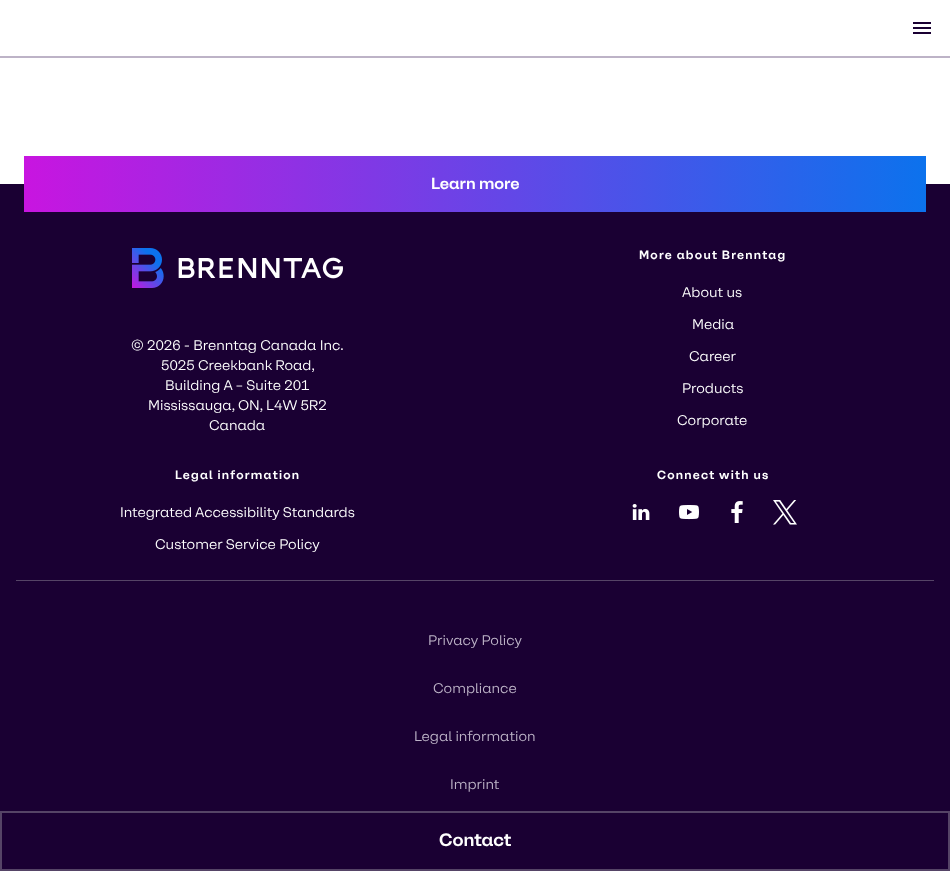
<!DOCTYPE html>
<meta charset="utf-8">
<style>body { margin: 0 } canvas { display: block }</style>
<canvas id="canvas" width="950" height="871"></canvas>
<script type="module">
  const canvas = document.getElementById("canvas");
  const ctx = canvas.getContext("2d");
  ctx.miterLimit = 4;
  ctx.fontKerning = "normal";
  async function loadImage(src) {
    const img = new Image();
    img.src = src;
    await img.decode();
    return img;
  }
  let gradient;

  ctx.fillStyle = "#ffffff";
  ctx.fillRect(0, 0, 950, 871);
  ctx.fillStyle = "#bdb3c7";
  ctx.fillRect(0, 56, 950, 2);
  ctx.drawImage(await loadImage("img1.png"), 913, 22, 18, 12);
  ctx.fillStyle = "#1a0033";
  ctx.fillRect(0, 184, 950, 627);
  gradient = ctx.createLinearGradient(24, 184, 926, 184);
  gradient.addColorStop(0, "#c815e0");
  gradient.addColorStop(1, "#0c72ed");
  ctx.fillStyle = gradient;
  ctx.fillRect(24, 156, 902, 56);
  ctx.font = "bold 16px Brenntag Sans";
  ctx.fillStyle = "#ffffff";
  ctx.fillText("Learn more", 431, 189);
  ctx.drawImage(await loadImage("img2.png"), 132, 248, 211, 40);
  ctx.font = "14px Brenntag Sans";
  ctx.fillText("© 2026 - Brenntag Canada Inc.", 131, 350);
  ctx.fillText("5025 Creekbank Road,", 161, 370);
  ctx.fillText("Building A – Suite 201", 165, 390);
  ctx.fillText("Mississauga, ON, L4W 5R2", 148, 410);
  ctx.fillText("Canada", 209, 430);
  ctx.letterSpacing = "1.25px";
  ctx.font = "bold 12px Brenntag Sans";
  ctx.fillText("More about Brenntag", 639, 259);
  ctx.letterSpacing = "0px";
  ctx.font = "14px Brenntag Sans";
  ctx.fillText("About us", 682, 297);
  ctx.fillText("Media", 692, 329);
  ctx.fillText("Career", 689, 361);
  ctx.fillText("Products", 682, 393);
  ctx.fillText("Corporate", 677, 425);
  ctx.letterSpacing = "1.25px";
  ctx.font = "bold 12px Brenntag Sans";
  ctx.fillText("Legal information", 175, 479);
  ctx.letterSpacing = "0px";
  ctx.font = "14px Brenntag Sans";
  ctx.fillText("Integrated Accessibility Standards", 120, 517);
  ctx.fillText("Customer Service Policy", 155, 549);
  ctx.letterSpacing = "1.25px";
  ctx.font = "bold 12px Brenntag Sans";
  ctx.fillText("Connect with us", 657, 479);
  ctx.drawImage(await loadImage("img3.png"), 632, 504, 18, 16);
  ctx.drawImage(await loadImage("img4.png"), 679, 505, 20, 15);
  ctx.drawImage(await loadImage("img5.png"), 731, 501, 12, 22);
  ctx.drawImage(await loadImage("img6.png"), 773, 500, 24, 25);
  ctx.fillStyle = "#554466";
  ctx.fillRect(16, 580, 918, 1);
  ctx.letterSpacing = "0px";
  ctx.font = "14px Brenntag Sans";
  ctx.fillStyle = "#bdb3c7";
  ctx.fillText("Privacy Policy", 428, 645);
  ctx.fillText("Compliance", 433, 693);
  ctx.fillText("Legal information", 414, 741);
  ctx.fillText("Imprint", 450, 789);
  ctx.fillStyle = "#1a0033";
  ctx.beginPath();
  ctx.rect(1, 812, 948, 58);
  ctx.fill();
  ctx.strokeStyle = "#554466";
  ctx.lineWidth = 2;
  ctx.stroke();
  ctx.font = "bold 18px Brenntag Sans";
  ctx.fillStyle = "#ffffff";
  ctx.fillText("Contact", 439, 846);
</script>
